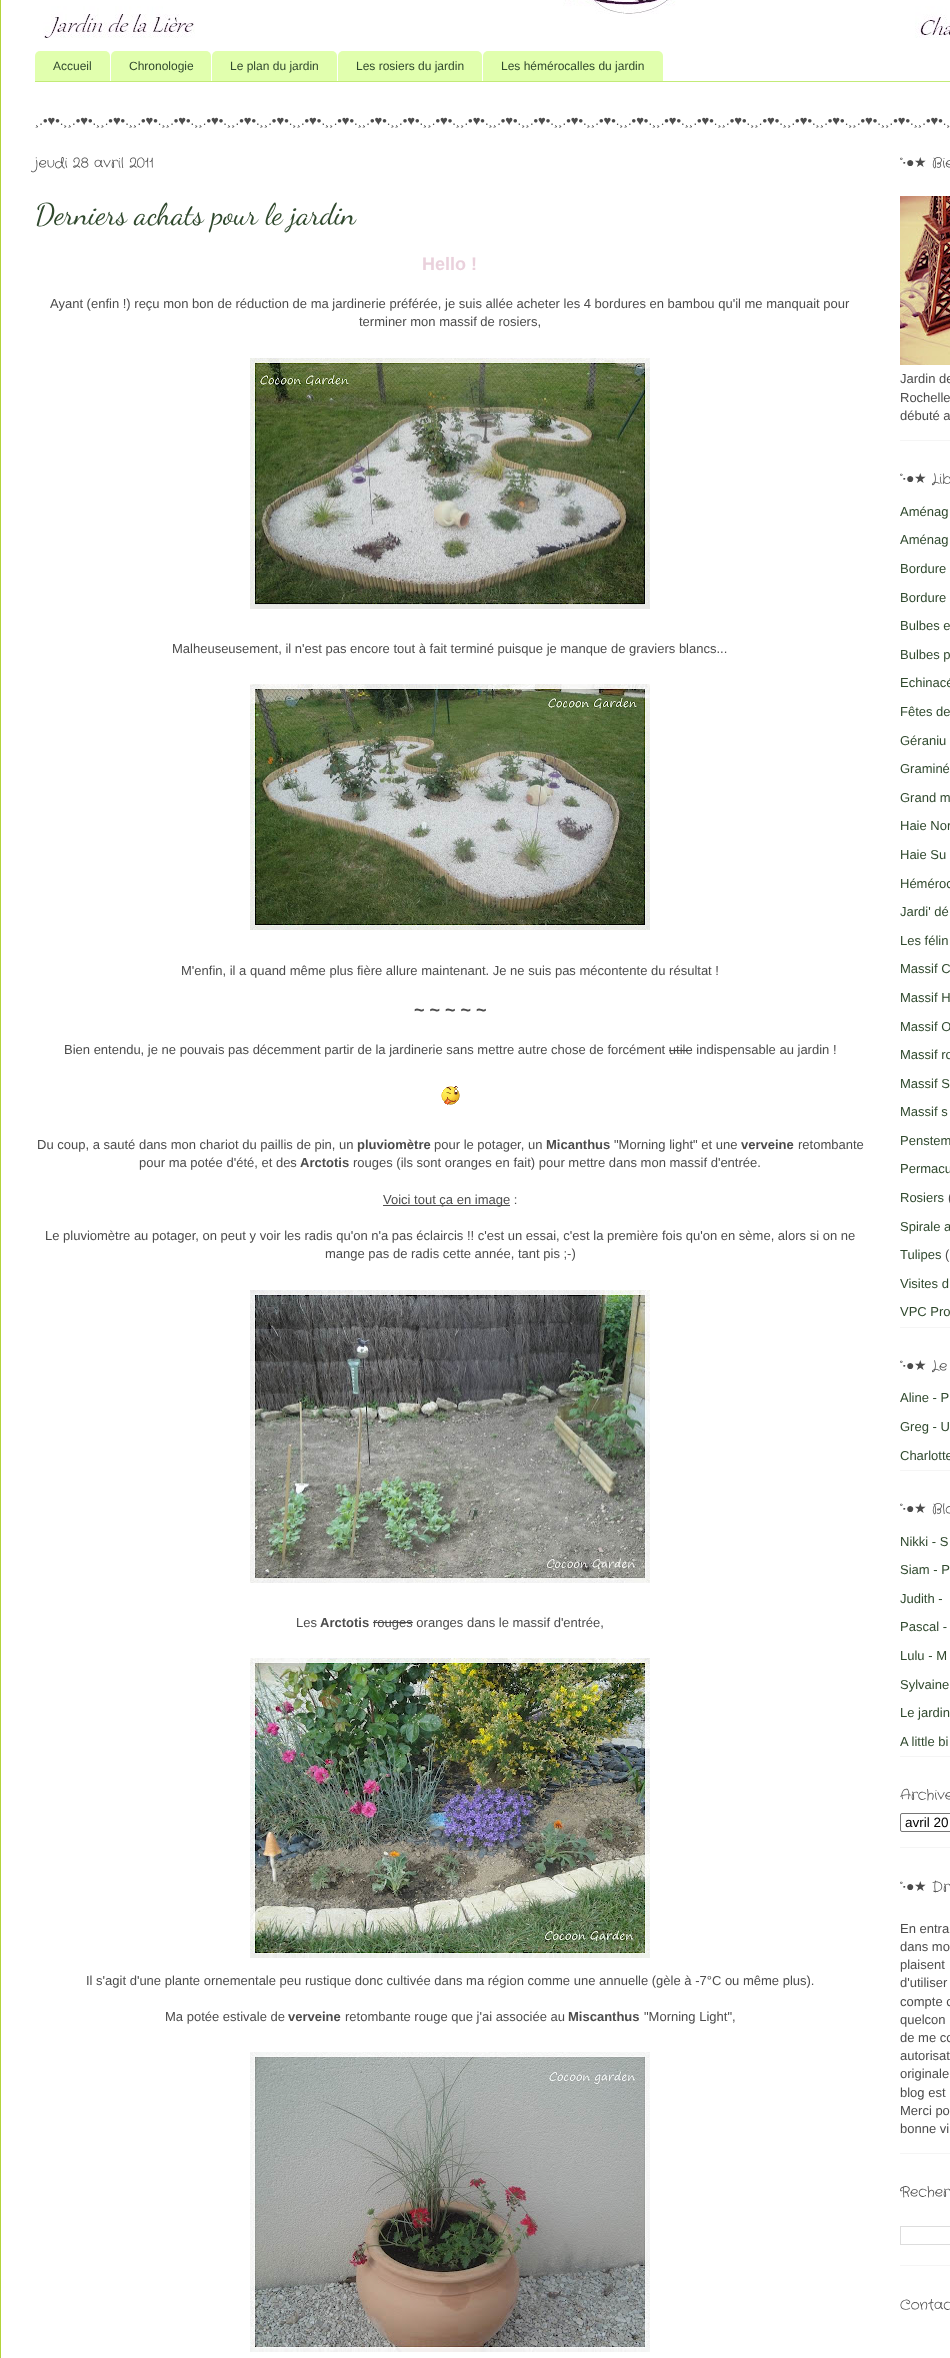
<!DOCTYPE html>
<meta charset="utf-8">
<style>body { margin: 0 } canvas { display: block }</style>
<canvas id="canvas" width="950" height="2358"></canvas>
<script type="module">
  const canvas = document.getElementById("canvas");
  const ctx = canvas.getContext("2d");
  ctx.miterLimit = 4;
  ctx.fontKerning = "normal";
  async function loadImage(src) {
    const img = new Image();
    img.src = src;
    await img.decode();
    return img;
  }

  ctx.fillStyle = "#ffffff";
  ctx.fillRect(0, 0, 950, 2358);
  ctx.fillStyle = "#b3d43a";
  ctx.fillRect(0, 0, 1, 2358);
  ctx.drawImage(await loadImage("img1.png"), 43, 0, 907, 38);
  ctx.fillStyle = "#c3eb78";
  ctx.fillRect(35, 81, 915, 1);
  ctx.fillStyle = "#e1ffae";
  ctx.beginPath();
  ctx.roundRect(35, 51, 75, 30, [5, 5, 0, 0]);
  ctx.fill();
  ctx.font = "12px Liberation Sans";
  ctx.fillStyle = "#30492e";
  ctx.fillText("Accueil", 53, 70);
  ctx.fillStyle = "#e1ffae";
  ctx.beginPath();
  ctx.roundRect(111, 51, 100, 30, [5, 5, 0, 0]);
  ctx.fill();
  ctx.fillStyle = "#30492e";
  ctx.fillText("Chronologie", 129, 70);
  ctx.fillStyle = "#e1ffae";
  ctx.beginPath();
  ctx.roundRect(212, 51, 125, 30, [5, 5, 0, 0]);
  ctx.fill();
  ctx.fillStyle = "#30492e";
  ctx.fillText("Le plan du jardin", 230, 70);
  ctx.fillStyle = "#e1ffae";
  ctx.beginPath();
  ctx.roundRect(338, 51, 144, 30, [5, 5, 0, 0]);
  ctx.fill();
  ctx.fillStyle = "#30492e";
  ctx.fillText("Les rosiers du jardin", 356, 70);
  ctx.fillStyle = "#e1ffae";
  ctx.beginPath();
  ctx.roundRect(483, 51, 180, 30, [5, 5, 0, 0]);
  ctx.fill();
  ctx.fillStyle = "#30492e";
  ctx.fillText("Les hémérocalles du jardin", 501, 70);
  ctx.font = "13px Liberation Sans";
  ctx.fillStyle = "#4c4c4c";
  ctx.fillText("¸.•♥•.¸¸.•♥•.¸¸.•♥•.¸¸.•♥•.¸¸.•♥•.¸¸.•♥•.¸¸.•♥•.¸¸.•♥•.¸¸.•♥•.¸¸.•♥•.¸¸.•♥•.¸¸.•♥•.¸¸.•♥•.¸¸.•♥•.¸¸.•♥•.¸¸.•♥•.¸¸.•♥•.¸¸.•♥•.¸¸.•♥•.¸¸.•♥•.¸¸.•♥•.¸¸.•♥•.¸¸.•♥•.¸¸.•♥•.¸¸.•♥•.¸¸.•♥•.¸¸.•♥•.¸¸.•♥•.¸", 35, 125);
  ctx.font = "14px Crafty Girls";
  ctx.fillText("jeudi 28 avril 2011", 35, 167);
  ctx.font = "30px Dancing Script";
  ctx.fillStyle = "#30492e";
  ctx.fillText("Derniers achats pour le jardin", 35, 224);
  ctx.font = "bold 18px Liberation Sans";
  ctx.fillStyle = "#ead1dc";
  ctx.fillText("Hello !", 422, 270);
  ctx.font = "13px Liberation Sans";
  ctx.fillStyle = "#4c4c4c";
  ctx.fillText("Ayant (enfin !) reçu mon bon de réduction de ma jardinerie préférée, je suis allée acheter les 4 bordures en bambou qu'il me manquait pour", 50, 308);
  ctx.fillText("terminer mon massif de rosiers,", 359, 326);
  ctx.drawImage(await loadImage("img2.png"), 250, 358, 400, 251);
  ctx.fillText("Malheuseusement, il n'est pas encore tout à fait terminé puisque je manque de graviers blancs...", 172, 653);
  ctx.drawImage(await loadImage("img3.png"), 250, 684, 400, 246);
  ctx.fillText("M'enfin, il a quand même plus fière allure maintenant. Je ne suis pas mécontente du résultat !", 181, 975);
  ctx.font = "bold 18px Liberation Sans";
  ctx.fillText("~ ~ ~ ~ ~", 414, 1016);
  ctx.font = "13px Liberation Sans";
  ctx.fillText("Bien entendu, je ne pouvais pas décemment partir de la jardinerie sans mettre autre chose de forcément utile indispensable au jardin !", 64, 1054);
  ctx.fillRect(669, 1050, 23, 1);
  ctx.drawImage(await loadImage("img4.png"), 441, 1086, 19, 19);
  ctx.fillText("Du coup, a sauté dans mon chariot du paillis de pin, un", 37, 1149);
  ctx.font = "bold 13px Liberation Sans";
  ctx.fillText("pluviomètre", 357, 1149);
  ctx.font = "13px Liberation Sans";
  ctx.fillText("pour le potager, un", 434, 1149);
  ctx.font = "bold 13px Liberation Sans";
  ctx.fillText("Micanthus", 546, 1149);
  ctx.font = "13px Liberation Sans";
  ctx.fillText("\"Morning light\" et une", 614, 1149);
  ctx.font = "bold 13px Liberation Sans";
  ctx.fillText("verveine", 741, 1149);
  ctx.font = "13px Liberation Sans";
  ctx.fillText("retombante", 798, 1149);
  ctx.fillText("pour ma potée d'été, et des", 139, 1167);
  ctx.font = "bold 13px Liberation Sans";
  ctx.fillText("Arctotis", 300, 1167);
  ctx.font = "13px Liberation Sans";
  ctx.fillText("rouges (ils sont oranges en fait) pour mettre dans mon massif d'entrée.", 353, 1167);
  ctx.fillRect(383, 1205, 127, 1);
  ctx.fillText("Voici tout ça en image :", 383, 1204);
  ctx.fillText("Le pluviomètre au potager, on peut y voir les radis qu'on n'a pas éclaircis !! c'est un essai, c'est la première fois qu'on en sème, alors si on ne", 45, 1240);
  ctx.fillText("mange pas de radis cette année, tant pis ;-)", 325, 1258);
  ctx.drawImage(await loadImage("img5.png"), 250, 1290, 400, 293);
  ctx.fillText("Les", 296, 1627);
  ctx.font = "bold 13px Liberation Sans";
  ctx.fillText("Arctotis", 320, 1627);
  ctx.font = "13px Liberation Sans";
  ctx.fillText("rouges oranges dans le massif d'entrée,", 373, 1627);
  ctx.fillRect(373, 1622, 40, 1);
  ctx.drawImage(await loadImage("img6.png"), 250, 1658, 400, 300);
  ctx.fillText("Il s'agit d'une plante ornementale peu rustique donc cultivée dans ma région comme une annuelle (gèle à -7°C ou même plus).", 86, 1985);
  ctx.fillText("Ma potée estivale de", 165, 2021);
  ctx.font = "bold 13px Liberation Sans";
  ctx.fillText("verveine", 288, 2021);
  ctx.font = "13px Liberation Sans";
  ctx.fillText("retombante rouge que j'ai associée au", 345, 2021);
  ctx.font = "bold 13px Liberation Sans";
  ctx.fillText("Miscanthus", 568, 2021);
  ctx.font = "13px Liberation Sans";
  ctx.fillText("\"Morning Light\",", 644, 2021);
  ctx.drawImage(await loadImage("img7.png"), 250, 2052, 400, 300);
  ctx.fillStyle = "#f5f5f5";
  ctx.fillRect(900, 440, 50, 1);
  ctx.font = "14px Crafty Girls";
  ctx.fillStyle = "#4c4c4c";
  ctx.fillText("°•", 900, 167);
  ctx.font = "14px Liberation Serif";
  ctx.fillText("●", 906, 167);
  ctx.font = "14px DejaVu Sans";
  ctx.fillText("★", 914, 167);
  ctx.font = "14px Crafty Girls";
  ctx.fillText("Bie", 932, 167);
  ctx.drawImage(await loadImage("img8.png"), 900, 196, 50, 169);
  ctx.font = "13px Liberation Sans";
  ctx.fillText("Jardin de", 900, 383);
  ctx.fillText("Rochelle", 900, 402);
  ctx.fillText("débuté a", 900, 420);
  ctx.fillStyle = "#f5f5f5";
  ctx.fillRect(900, 1327, 50, 1);
  ctx.font = "14px Crafty Girls";
  ctx.fillStyle = "#4c4c4c";
  ctx.fillText("°•", 900, 483);
  ctx.font = "14px Liberation Serif";
  ctx.fillText("●", 906, 483);
  ctx.font = "14px DejaVu Sans";
  ctx.fillText("★", 914, 483);
  ctx.font = "14px Crafty Girls";
  ctx.fillText("Lib", 932, 483);
  ctx.font = "13px Liberation Sans";
  ctx.fillStyle = "#30492e";
  ctx.fillText("Aménag", 900, 516);
  ctx.fillText("Aménag", 900, 544);
  ctx.fillText("Bordure", 900, 573);
  ctx.fillText("Bordure", 900, 602);
  ctx.fillText("Bulbes e", 900, 630);
  ctx.fillText("Bulbes p", 900, 659);
  ctx.fillText("Echinacé", 900, 687);
  ctx.fillText("Fêtes de", 900, 716);
  ctx.fillText("Géraniu", 900, 745);
  ctx.fillText("Graminé", 900, 773);
  ctx.fillText("Grand m", 900, 802);
  ctx.fillText("Haie Nor", 900, 830);
  ctx.fillText("Haie Su", 900, 859);
  ctx.fillText("Héméroc", 900, 888);
  ctx.fillText("Jardi' dé", 900, 916);
  ctx.fillText("Les félin", 900, 945);
  ctx.fillText("Massif C", 900, 973);
  ctx.fillText("Massif H", 900, 1002);
  ctx.fillText("Massif O", 900, 1031);
  ctx.fillText("Massif ro", 900, 1059);
  ctx.fillText("Massif S", 900, 1088);
  ctx.fillText("Massif s", 900, 1116);
  ctx.fillText("Penstem", 900, 1145);
  ctx.fillText("Permacu", 900, 1173);
  ctx.fillText("Rosiers", 900, 1202);
  ctx.fillStyle = "#4c4c4c";
  ctx.fillText("(", 948, 1202);
  ctx.fillStyle = "#30492e";
  ctx.fillText("Spirale a", 900, 1231);
  ctx.fillText("Tulipes", 900, 1259);
  ctx.fillStyle = "#4c4c4c";
  ctx.fillText("(", 945, 1259);
  ctx.fillStyle = "#30492e";
  ctx.fillText("Visites d", 900, 1288);
  ctx.fillText("VPC Pro", 900, 1316);
  ctx.fillStyle = "#f5f5f5";
  ctx.fillRect(900, 1470, 50, 1);
  ctx.font = "14px Crafty Girls";
  ctx.fillStyle = "#4c4c4c";
  ctx.fillText("°•", 900, 1370);
  ctx.font = "14px Liberation Serif";
  ctx.fillText("●", 906, 1370);
  ctx.font = "14px DejaVu Sans";
  ctx.fillText("★", 914, 1370);
  ctx.font = "14px Crafty Girls";
  ctx.fillText("Le", 932, 1370);
  ctx.font = "13px Liberation Sans";
  ctx.fillStyle = "#30492e";
  ctx.fillText("Aline - P", 900, 1402);
  ctx.fillText("Greg - U", 900, 1431);
  ctx.fillText("Charlotte", 900, 1460);
  ctx.fillStyle = "#f5f5f5";
  ctx.fillRect(900, 1756, 50, 1);
  ctx.font = "14px Crafty Girls";
  ctx.fillStyle = "#4c4c4c";
  ctx.fillText("°•", 900, 1513);
  ctx.font = "14px Liberation Serif";
  ctx.fillText("●", 906, 1513);
  ctx.font = "14px DejaVu Sans";
  ctx.fillText("★", 914, 1513);
  ctx.font = "14px Crafty Girls";
  ctx.fillText("Blo", 932, 1513);
  ctx.font = "13px Liberation Sans";
  ctx.fillStyle = "#30492e";
  ctx.fillText("Nikki - S", 900, 1546);
  ctx.fillText("Siam - P", 900, 1574);
  ctx.fillText("Judith -", 900, 1603);
  ctx.fillText("Pascal -", 900, 1631);
  ctx.fillText("Lulu - M", 900, 1660);
  ctx.fillText("Sylvaine", 900, 1689);
  ctx.fillText("Le jardin", 900, 1717);
  ctx.fillText("A little bi", 900, 1746);
  ctx.fillStyle = "#f5f5f5";
  ctx.fillRect(900, 1847, 50, 1);
  ctx.font = "14px Crafty Girls";
  ctx.fillStyle = "#4c4c4c";
  ctx.fillText("Archive", 900, 1799);
  ctx.beginPath();
  ctx.roundRect(900.5, 1813.5, 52, 18, 1.5);
  ctx.strokeStyle = "#767676";
  ctx.stroke();
  ctx.font = "13.5px Liberation Sans";
  ctx.fillStyle = "#000000";
  ctx.fillText("avril 20", 905, 1827);
  ctx.fillStyle = "#f5f5f5";
  ctx.fillRect(900, 2153, 50, 1);
  ctx.font = "14px Crafty Girls";
  ctx.fillStyle = "#4c4c4c";
  ctx.fillText("°•", 900, 1891);
  ctx.font = "14px Liberation Serif";
  ctx.fillText("●", 906, 1891);
  ctx.font = "14px DejaVu Sans";
  ctx.fillText("★", 914, 1891);
  ctx.font = "14px Crafty Girls";
  ctx.fillText("Dr", 932, 1891);
  ctx.font = "13px Liberation Sans";
  ctx.fillText("En entra", 900, 1933);
  ctx.fillText("dans mo", 900, 1951);
  ctx.fillText("plaisent", 900, 1969);
  ctx.fillText("d'utiliser", 900, 1987);
  ctx.fillText("compte o", 900, 2006);
  ctx.fillText("quelcon", 900, 2024);
  ctx.fillText("de me co", 900, 2042);
  ctx.fillText("autorisat", 900, 2060);
  ctx.fillText("originale", 900, 2078);
  ctx.fillText("blog est", 900, 2097);
  ctx.fillText("Merci po", 900, 2115);
  ctx.fillText("bonne vi", 900, 2133);
  ctx.fillStyle = "#f5f5f5";
  ctx.fillRect(900, 2265, 50, 1);
  ctx.font = "14px Crafty Girls";
  ctx.fillStyle = "#4c4c4c";
  ctx.fillText("Recher", 900, 2196);
  ctx.strokeStyle = "#dddddd";
  ctx.strokeRect(900.5, 2226.5, 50, 18);
  ctx.fillText("Contac", 900, 2309);
</script>
